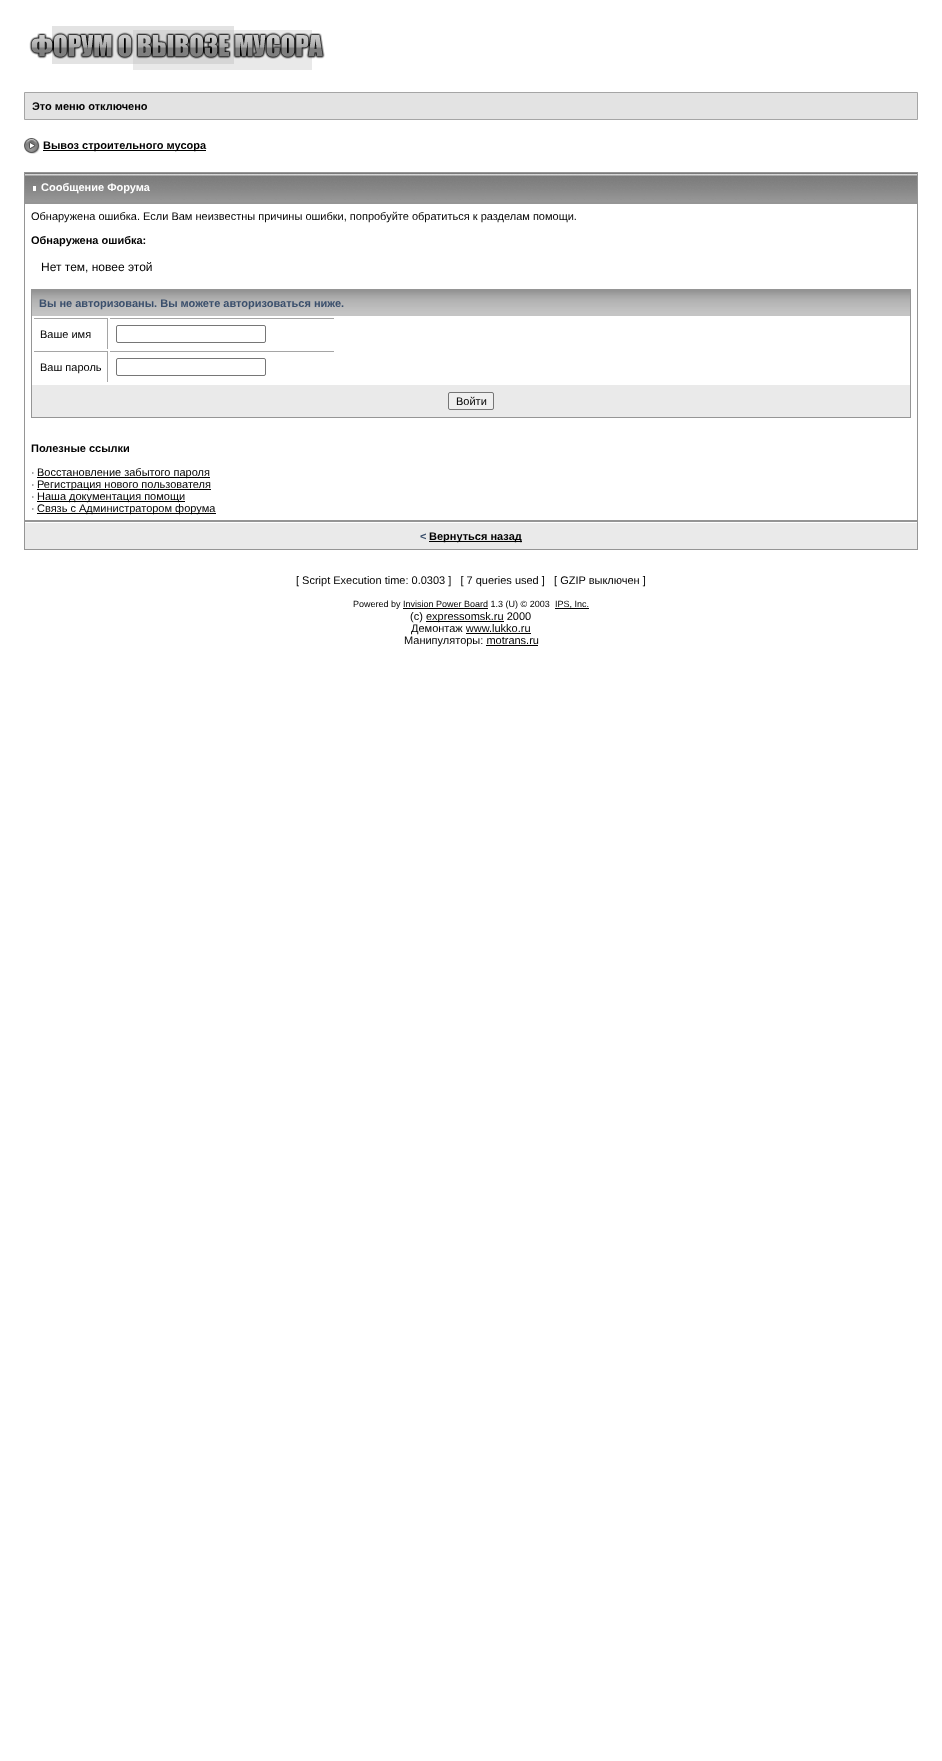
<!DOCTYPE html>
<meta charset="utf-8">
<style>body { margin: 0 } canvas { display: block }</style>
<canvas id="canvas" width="942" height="1761"></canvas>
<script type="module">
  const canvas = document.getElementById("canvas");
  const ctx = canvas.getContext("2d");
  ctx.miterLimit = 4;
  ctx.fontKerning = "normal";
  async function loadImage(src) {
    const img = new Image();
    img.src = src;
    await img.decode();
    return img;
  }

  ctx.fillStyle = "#ffffff";
  ctx.fillRect(0, 0, 942, 1761);
  ctx.drawImage(await loadImage("img1.png"), 29, 26, 296, 44);
  ctx.fillStyle = "#e3e3e3";
  ctx.beginPath();
  ctx.rect(24.5, 92.5, 893, 27);
  ctx.fill();
  ctx.strokeStyle = "#a5a5a5";
  ctx.stroke();
  ctx.font = "bold 11px Liberation Sans";
  ctx.fillStyle = "#000000";
  ctx.fillText("Это меню отключено", 32, 110);
  ctx.drawImage(await loadImage("img2.png"), 24, 138, 16, 16);
  ctx.fillRect(43, 150, 163, 1);
  ctx.fillText("Вывоз строительного мусора", 43, 149);
  ctx.strokeStyle = "#959595";
  ctx.strokeRect(24.5, 172.5, 893, 30);
  ctx.drawImage(await loadImage("img3.png"), 25, 173, 892, 29);
  ctx.fillStyle = "#ffffff";
  ctx.fillRect(33, 186, 3, 5);
  ctx.fillText("Сообщение Форума", 41, 191);
  ctx.strokeRect(24.5, 203.5, 893, 317);
  ctx.font = "11px Liberation Sans";
  ctx.fillStyle = "#000000";
  ctx.fillText("Обнаружена ошибка. Если Вам неизвестны причины ошибки, попробуйте обратиться к разделам помощи.", 31, 220);
  ctx.font = "bold 11px Liberation Sans";
  ctx.fillText("Обнаружена ошибка:", 31, 244);
  ctx.font = "12px Liberation Sans";
  ctx.fillText("Нет тем, новее этой", 41, 271);
  ctx.strokeRect(31.5, 289.5, 879, 128);
  ctx.drawImage(await loadImage("img4.png"), 32, 290, 878, 26);
  ctx.font = "bold 11px Liberation Sans";
  ctx.fillStyle = "#3a4f6c";
  ctx.fillText("Вы не авторизованы. Вы можете авторизоваться ниже.", 39, 307);
  ctx.fillStyle = "#a5a5a5";
  ctx.fillRect(34, 318, 74, 1);
  ctx.fillRect(107, 318, 1, 31);
  ctx.font = "11px Liberation Sans";
  ctx.fillStyle = "#000000";
  ctx.fillText("Ваше имя", 40, 338);
  ctx.fillStyle = "#a5a5a5";
  ctx.fillRect(110, 318, 224, 1);
  ctx.beginPath();
  ctx.roundRect(116.5, 325.5, 149, 17, 1.5);
  ctx.strokeStyle = "#767676";
  ctx.stroke();
  ctx.fillRect(34, 351, 74, 1);
  ctx.fillRect(107, 351, 1, 31);
  ctx.fillStyle = "#000000";
  ctx.fillText("Ваш пароль", 40, 371);
  ctx.fillStyle = "#a5a5a5";
  ctx.fillRect(110, 351, 224, 1);
  ctx.beginPath();
  ctx.roundRect(116.5, 358.5, 149, 17, 1.5);
  ctx.stroke();
  ctx.fillStyle = "#eaeaea";
  ctx.fillRect(32, 385, 878, 32);
  ctx.fillStyle = "#efefef";
  ctx.beginPath();
  ctx.roundRect(448.5, 392.5, 45, 17, 1.5);
  ctx.fill();
  ctx.stroke();
  ctx.fillStyle = "#000000";
  ctx.fillText("Войти", 456, 405);
  ctx.font = "bold 11px Liberation Sans";
  ctx.fillText("Полезные ссылки", 31, 452);
  ctx.font = "11px Liberation Sans";
  ctx.fillText("·", 31, 476);
  ctx.fillRect(37, 477, 173, 1);
  ctx.fillText("Восстановление забытого пароля", 37, 476);
  ctx.fillText("·", 31, 488);
  ctx.fillRect(37, 489, 174, 1);
  ctx.fillText("Регистрация нового пользователя", 37, 488);
  ctx.fillText("·", 31, 500);
  ctx.fillRect(37, 501, 148, 1);
  ctx.fillText("Наша документация помощи", 37, 500);
  ctx.fillText("·", 31, 512);
  ctx.fillRect(37, 513, 179, 1);
  ctx.fillText("Связь с Администратором форума", 37, 512);
  ctx.strokeStyle = "#959595";
  ctx.strokeRect(24.5, 521.5, 893, 28);
  ctx.fillStyle = "#eaeaea";
  ctx.fillRect(25, 523, 892, 26);
  ctx.font = "bold 11px Liberation Sans";
  ctx.fillStyle = "#3a4f6c";
  ctx.fillText("<", 420, 540);
  ctx.fillStyle = "#000000";
  ctx.fillRect(429, 541, 93, 1);
  ctx.fillText("Вернуться назад", 429, 540);
  ctx.font = "11px Liberation Sans";
  ctx.fillText("[ Script Execution time: 0.0303 ]   [ 7 queries used ]   [ GZIP выключен ]", 296, 584);
  ctx.font = "9px Liberation Sans";
  ctx.fillText("Powered by Invision Power Board 1.3 (U) © 2003", 353, 607);
  ctx.fillRect(555, 608, 34, 1);
  ctx.fillText("IPS, Inc.", 555, 607);
  ctx.fillRect(403, 608, 85, 1);
  ctx.font = "11px Liberation Sans";
  ctx.fillText("(c)", 410, 620);
  ctx.fillRect(426, 621, 78, 1);
  ctx.fillText("expressomsk.ru 2000", 426, 620);
  ctx.fillText("Демонтаж www.lukko.ru", 411, 632);
  ctx.fillRect(466, 633, 65, 1);
  ctx.fillText("Манипуляторы: motrans.ru", 404, 644);
  ctx.fillRect(486, 645, 52, 1);
</script>
